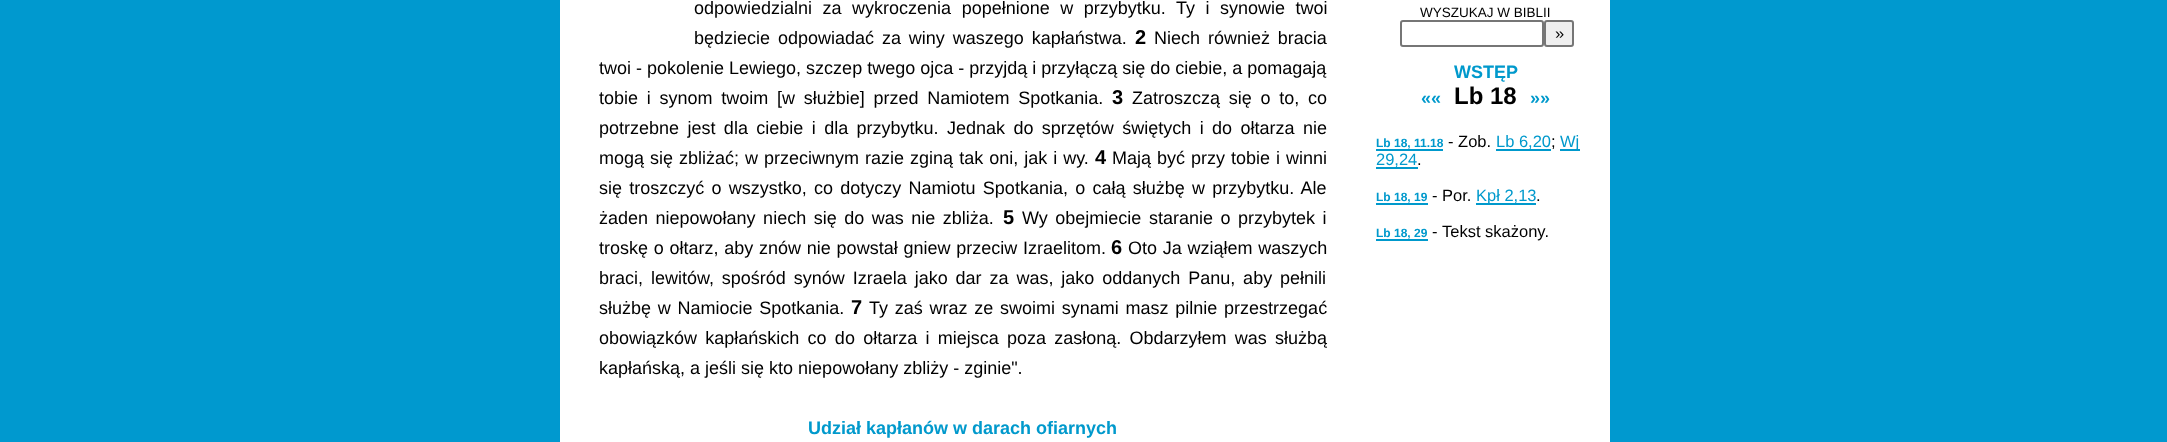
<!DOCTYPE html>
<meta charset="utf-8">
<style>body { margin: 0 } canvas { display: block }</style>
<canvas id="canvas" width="2167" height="442"></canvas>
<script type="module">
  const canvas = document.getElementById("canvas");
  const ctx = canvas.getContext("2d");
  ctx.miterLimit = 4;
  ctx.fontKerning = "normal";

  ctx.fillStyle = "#0099cf";
  ctx.fillRect(0, 0, 2167, 442);
  ctx.fillStyle = "#ffffff";
  ctx.fillRect(560, 0, 1050, 442);
  ctx.wordSpacing = "5.5px";
  ctx.font = "18px Liberation Sans";
  ctx.fillStyle = "#000000";
  ctx.fillText("odpowiedzialni za wykroczenia popełnione w przybytku. Ty i synowie twoi", 694, 14);
  ctx.wordSpacing = "2.9px";
  ctx.fillText("będziecie odpowiadać za winy waszego kapłaństwa.", 694, 44);
  ctx.wordSpacing = "0px";
  ctx.font = "bold 20px Liberation Sans";
  ctx.fillText("2", 1135, 44);
  ctx.wordSpacing = "2.9px";
  ctx.font = "18px Liberation Sans";
  ctx.fillText("Niech również bracia", 1154, 44);
  ctx.wordSpacing = "0px";
  ctx.fillText("twoi - pokolenie Lewiego, szczep twego ojca - przyjdą i przyłączą się do ciebie, a pomagają", 599, 74);
  ctx.wordSpacing = "3.75px";
  ctx.fillText("tobie i synom twoim [w służbie] przed Namiotem Spotkania.", 599, 104);
  ctx.wordSpacing = "0px";
  ctx.font = "bold 20px Liberation Sans";
  ctx.fillText("3", 1112, 104);
  ctx.wordSpacing = "3.75px";
  ctx.font = "18px Liberation Sans";
  ctx.fillText("Zatroszczą się o to, co", 1132, 104);
  ctx.wordSpacing = "3.4px";
  ctx.fillText("potrzebne jest dla ciebie i dla przybytku. Jednak do sprzętów świętych i do ołtarza nie", 599, 134);
  ctx.wordSpacing = "1px";
  ctx.fillText("mogą się zbliżać; w przeciwnym razie zginą tak oni, jak i wy.", 599, 164);
  ctx.wordSpacing = "0px";
  ctx.font = "bold 20px Liberation Sans";
  ctx.fillText("4", 1095, 164);
  ctx.wordSpacing = "1px";
  ctx.font = "18px Liberation Sans";
  ctx.fillText("Mają być przy tobie i winni", 1112, 164);
  ctx.wordSpacing = "2.25px";
  ctx.fillText("się troszczyć o wszystko, co dotyczy Namiotu Spotkania, o całą służbę w przybytku. Ale", 599, 194);
  ctx.wordSpacing = "2.5px";
  ctx.fillText("żaden niepowołany niech się do was nie zbliża.", 599, 224);
  ctx.wordSpacing = "0px";
  ctx.font = "bold 20px Liberation Sans";
  ctx.fillText("5", 1003, 224);
  ctx.wordSpacing = "2.5px";
  ctx.font = "18px Liberation Sans";
  ctx.fillText("Wy obejmiecie staranie o przybytek i", 1022, 224);
  ctx.wordSpacing = "0.75px";
  ctx.fillText("troskę o ołtarz, aby znów nie powstał gniew przeciw Izraelitom.", 599, 254);
  ctx.wordSpacing = "0px";
  ctx.font = "bold 20px Liberation Sans";
  ctx.fillText("6", 1111, 254);
  ctx.wordSpacing = "0.75px";
  ctx.font = "18px Liberation Sans";
  ctx.fillText("Oto Ja wziąłem waszych", 1128, 254);
  ctx.wordSpacing = "2.9px";
  ctx.fillText("braci, lewitów, spośród synów Izraela jako dar za was, jako oddanych Panu, aby pełnili", 599, 284);
  ctx.wordSpacing = "1.75px";
  ctx.fillText("służbę w Namiocie Spotkania.", 599, 314);
  ctx.wordSpacing = "0px";
  ctx.font = "bold 20px Liberation Sans";
  ctx.fillText("7", 851, 314);
  ctx.wordSpacing = "1.75px";
  ctx.font = "18px Liberation Sans";
  ctx.fillText("Ty zaś wraz ze swoimi synami masz pilnie przestrzegać", 869, 314);
  ctx.wordSpacing = "3.25px";
  ctx.fillText("obowiązków kapłańskich co do ołtarza i miejsca poza zasłoną. Obdarzyłem was służbą", 599, 344);
  ctx.wordSpacing = "0px";
  ctx.fillText("kapłańską, a jeśli się kto niepowołany zbliży - zginie\".", 599, 374);
  ctx.font = "bold 18px Liberation Sans";
  ctx.fillStyle = "#0099cc";
  ctx.fillText("Udział kapłanów w darach ofiarnych", 808, 434);
  ctx.font = "13.5px Liberation Sans";
  ctx.fillStyle = "#000000";
  ctx.fillText("WYSZUKAJ W BIBLII", 1420, 17);
  ctx.beginPath();
  ctx.roundRect(1401, 21, 142, 25, 2);
  ctx.strokeStyle = "#767676";
  ctx.lineWidth = 2;
  ctx.stroke();
  ctx.fillStyle = "#efefef";
  ctx.beginPath();
  ctx.roundRect(1545, 21, 28, 25, 2);
  ctx.fill();
  ctx.stroke();
  ctx.font = "16.5px Liberation Sans";
  ctx.fillStyle = "#000000";
  ctx.fillText("»", 1555, 39);
  ctx.font = "bold 18px Liberation Sans";
  ctx.fillStyle = "#0099cc";
  ctx.fillText("WSTĘP", 1454, 78);
  ctx.fillText("««", 1421, 104);
  ctx.font = "bold 24px Liberation Sans";
  ctx.fillStyle = "#000000";
  ctx.fillText("Lb 18", 1454, 104);
  ctx.font = "bold 18px Liberation Sans";
  ctx.fillStyle = "#0099cc";
  ctx.fillText("»»", 1530, 104);
  ctx.font = "bold 12px Liberation Sans";
  ctx.fillText("Lb 18, 11.18", 1376, 147);
  ctx.fillRect(1376, 149, 67, 2);
  ctx.font = "16.5px Liberation Sans";
  ctx.fillStyle = "#000000";
  ctx.fillText("- Zob.", 1448, 147);
  ctx.fillStyle = "#0099cc";
  ctx.fillRect(1496, 149, 55, 2);
  ctx.fillText("Lb 6,20", 1496, 147);
  ctx.fillStyle = "#000000";
  ctx.fillText(";", 1551, 147);
  ctx.fillStyle = "#0099cc";
  ctx.fillRect(1560, 149, 20, 2);
  ctx.fillText("Wj", 1560, 147);
  ctx.fillRect(1376, 167, 42, 2);
  ctx.fillText("29,24", 1376, 165);
  ctx.fillStyle = "#000000";
  ctx.fillText(".", 1417, 165);
  ctx.font = "bold 12px Liberation Sans";
  ctx.fillStyle = "#0099cc";
  ctx.fillText("Lb 18, 19", 1376, 201);
  ctx.fillRect(1376, 203, 52, 2);
  ctx.font = "16.5px Liberation Sans";
  ctx.fillStyle = "#000000";
  ctx.fillText("- Por.", 1432, 201);
  ctx.fillStyle = "#0099cc";
  ctx.fillRect(1476, 203, 60, 2);
  ctx.fillText("Kpł 2,13", 1476, 201);
  ctx.fillStyle = "#000000";
  ctx.fillText(".", 1536, 201);
  ctx.font = "bold 12px Liberation Sans";
  ctx.fillStyle = "#0099cc";
  ctx.fillText("Lb 18, 29", 1376, 237);
  ctx.fillRect(1376, 239, 52, 2);
  ctx.font = "16.5px Liberation Sans";
  ctx.fillStyle = "#000000";
  ctx.fillText("-", 1432, 237);
  ctx.fillText("Tekst skażony.", 1442, 237);
</script>
